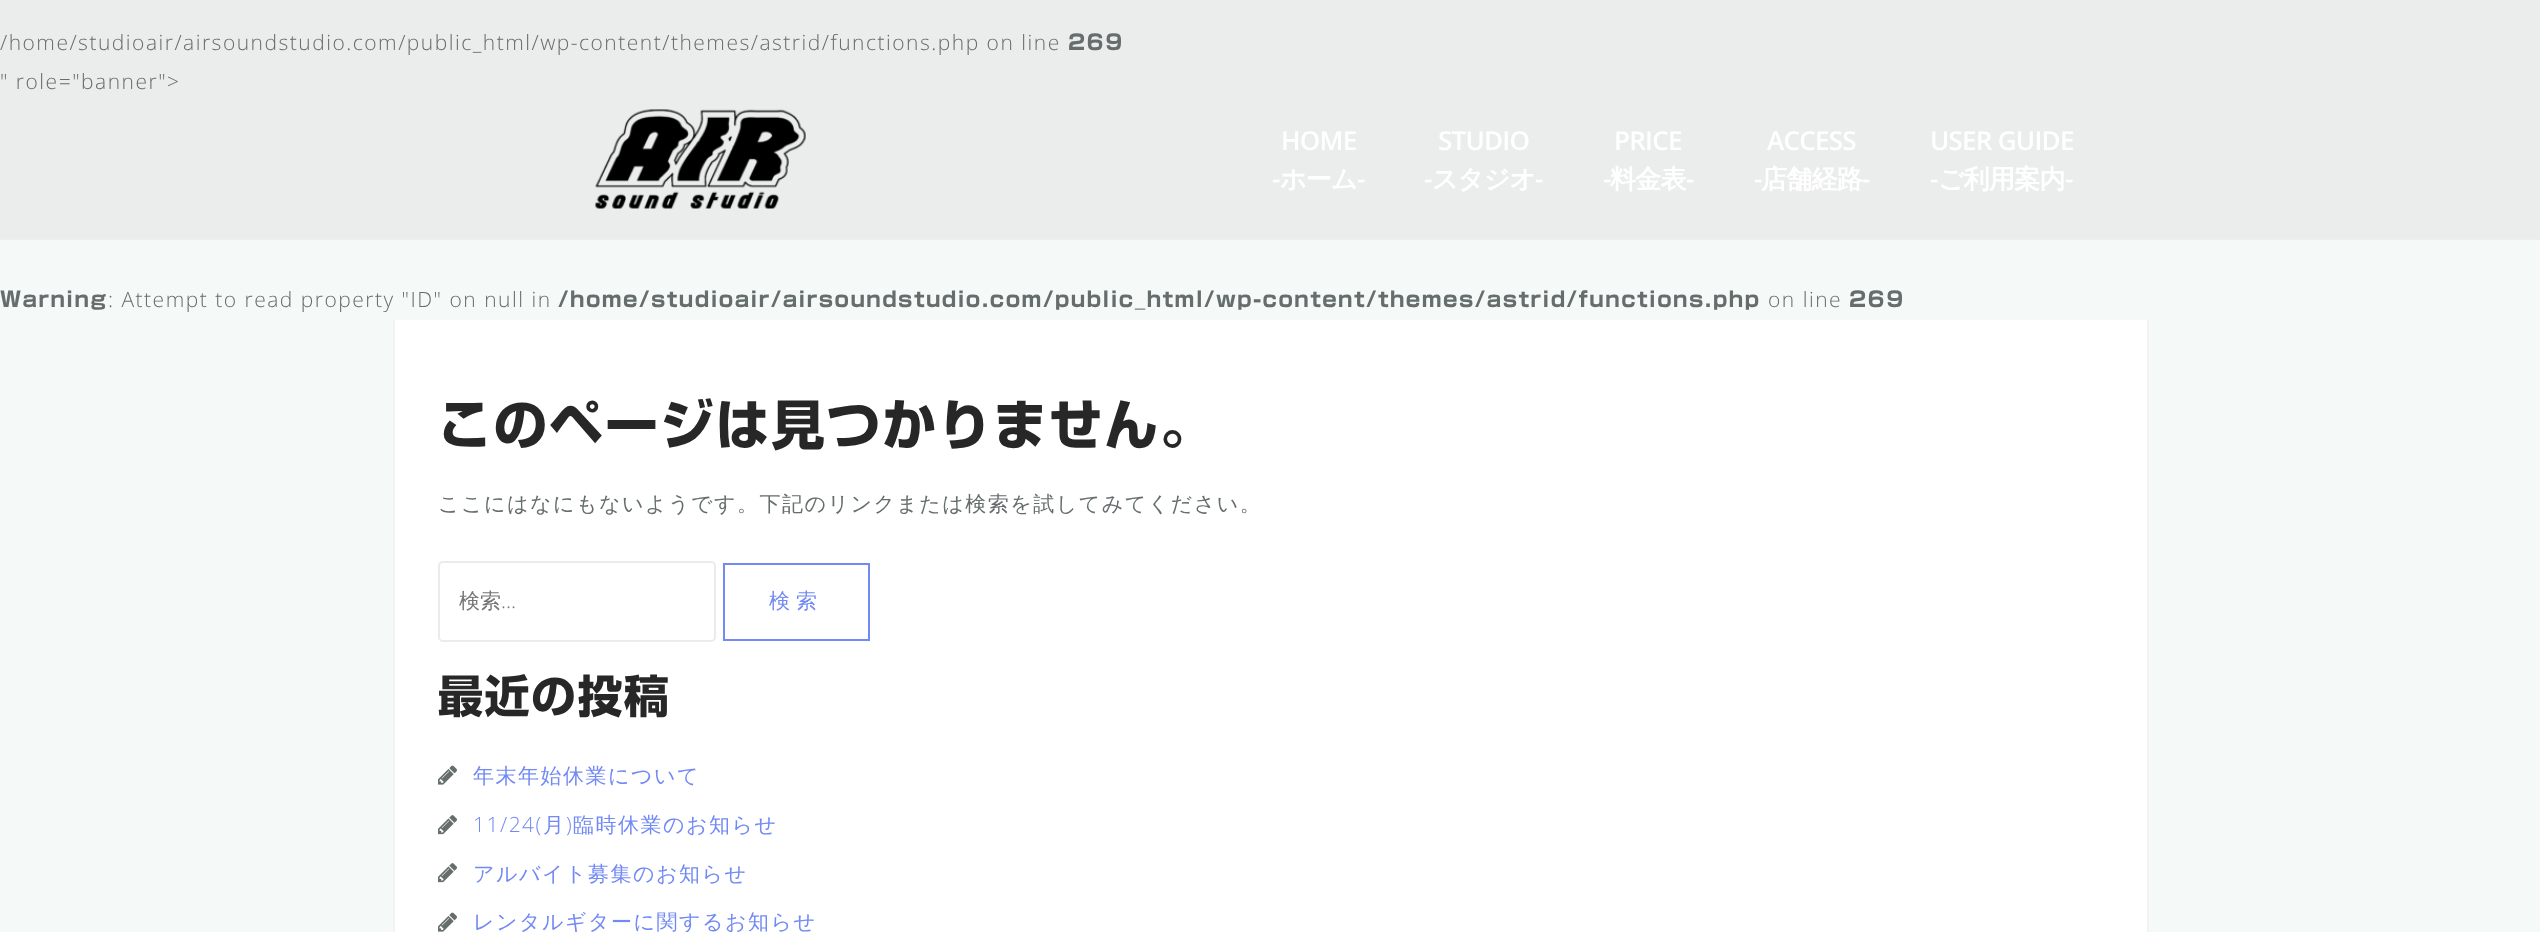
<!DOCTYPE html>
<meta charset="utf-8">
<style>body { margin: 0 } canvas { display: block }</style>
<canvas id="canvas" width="2540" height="932"></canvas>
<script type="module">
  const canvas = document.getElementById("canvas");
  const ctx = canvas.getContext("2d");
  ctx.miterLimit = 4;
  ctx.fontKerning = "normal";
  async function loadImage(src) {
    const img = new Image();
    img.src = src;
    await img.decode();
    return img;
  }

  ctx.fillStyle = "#f5f9f8";
  ctx.fillRect(0, 0, 2540, 932);
  ctx.fillStyle = "#ebecec";
  ctx.fillRect(0, 0, 2540, 239);
  ctx.fillStyle = "#edeeee";
  ctx.fillRect(0, 239, 2540, 1);
  ctx.letterSpacing = "1.5px";
  ctx.font = "300 21px Open Sans";
  ctx.fillStyle = "#656d6d";
  ctx.fillText("/home/studioair/airsoundstudio.com/public_html/wp-content/themes/astrid/functions.php on line", 0, 50);
  ctx.font = "bold 21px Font";
  ctx.fillText("269", 1068, 50);
  ctx.font = "300 21px Open Sans";
  ctx.fillText("\" role=\"banner\">", 0, 89);
  ctx.drawImage(await loadImage("img1.png"), 595, 109, 211, 100);
  ctx.letterSpacing = "-0.75px";
  ctx.font = "600 26px Open Sans";
  ctx.fillStyle = "#ffffff";
  ctx.fillText("HOME", 1281, 150);
  ctx.fillText("-", 1272, 188);
  ctx.font = "bold 26px WenQuanYi Zen Hei";
  ctx.fillText("ホーム", 1280, 188);
  ctx.font = "600 26px Open Sans";
  ctx.fillText("-", 1357, 188);
  ctx.fillText("STUDIO", 1438, 150);
  ctx.fillText("-", 1424, 188);
  ctx.font = "bold 26px WenQuanYi Zen Hei";
  ctx.fillText("スタジオ", 1432, 188);
  ctx.font = "600 26px Open Sans";
  ctx.fillText("-", 1535, 188);
  ctx.fillText("PRICE", 1614, 150);
  ctx.fillText("-", 1603, 188);
  ctx.font = "bold 26px WenQuanYi Zen Hei";
  ctx.fillText("料金表", 1610, 188);
  ctx.font = "600 26px Open Sans";
  ctx.fillText("-", 1686, 188);
  ctx.fillText("ACCESS", 1767, 150);
  ctx.fillText("-", 1754, 188);
  ctx.font = "bold 26px WenQuanYi Zen Hei";
  ctx.fillText("店舗経路", 1761, 188);
  ctx.font = "600 26px Open Sans";
  ctx.fillText("-", 1862, 188);
  ctx.fillText("USER GUIDE", 1930, 150);
  ctx.fillText("-", 1930, 188);
  ctx.font = "bold 26px WenQuanYi Zen Hei";
  ctx.fillText("ご利用案内", 1938, 188);
  ctx.font = "600 26px Open Sans";
  ctx.fillText("-", 2065, 188);
  ctx.letterSpacing = "1.5px";
  ctx.font = "bold 21px Font";
  ctx.fillStyle = "#656d6d";
  ctx.fillText("Warning", 0, 307);
  ctx.font = "300 21px Open Sans";
  ctx.fillText(": Attempt to read property \"ID\" on null in", 108, 307);
  ctx.font = "bold 21px Font";
  ctx.fillText("/home/studioair/airsoundstudio.com/public_html/wp-content/themes/astrid/functions.php", 558, 307);
  ctx.font = "300 21px Open Sans";
  ctx.fillText("on line", 1768, 307);
  ctx.font = "bold 21px Font";
  ctx.fillText("269", 1849, 307);
  ctx.fillStyle = "#ffffff";
  ctx.fillRect(395, 320, 1752, 612);
  ctx.fillStyle = "#f2f2f3";
  ctx.fillRect(2147, 320, 2, 612);
  ctx.fillRect(393, 320, 2, 612);
  ctx.font = "bold 54px Font";
  ctx.fillStyle = "#272727";
  ctx.fillText("このページは見つかりません。", 438, 445);
  ctx.font = "500 21px WenQuanYi Zen Hei";
  ctx.fillStyle = "#656d6d";
  ctx.fillText("ここにはなにもないようです。下記のリンクまたは検索を試してみてください。", 438, 511);
  ctx.beginPath();
  ctx.roundRect(439, 562, 276, 79, 4);
  ctx.strokeStyle = "#ebebeb";
  ctx.lineWidth = 2;
  ctx.stroke();
  ctx.letterSpacing = "0px";
  ctx.fillStyle = "#757575";
  ctx.fillText("検索", 459, 608);
  ctx.font = "300 21px Open Sans";
  ctx.fillText("…", 501, 608);
  ctx.strokeStyle = "#738af4";
  ctx.strokeRect(724, 564, 145, 76);
  ctx.letterSpacing = "6px";
  ctx.font = "500 21px WenQuanYi Zen Hei";
  ctx.fillStyle = "#738af4";
  ctx.fillText("検索", 769, 608);
  ctx.letterSpacing = "1.5px";
  ctx.font = "bold 45px Font";
  ctx.fillStyle = "#272727";
  ctx.fillText("最近の投稿", 438, 713);
  ctx.drawImage(await loadImage("img2.png"), 438, 765, 19, 20);
  ctx.font = "500 21px WenQuanYi Zen Hei";
  ctx.fillStyle = "#738af4";
  ctx.fillText("年末年始休業について", 473, 783);
  ctx.drawImage(await loadImage("img3.png"), 438, 815, 19, 20);
  ctx.font = "300 21px Open Sans";
  ctx.fillText("11/24(", 473, 832);
  ctx.font = "500 21px WenQuanYi Zen Hei";
  ctx.fillText("月", 543, 832);
  ctx.font = "300 21px Open Sans";
  ctx.fillText(")", 566, 832);
  ctx.font = "500 21px WenQuanYi Zen Hei";
  ctx.fillText("臨時休業のお知らせ", 573, 832);
  ctx.drawImage(await loadImage("img3.png"), 438, 863, 19, 20);
  ctx.fillText("アルバイト募集のお知らせ", 473, 881);
  ctx.drawImage(await loadImage("img2.png"), 438, 912, 19, 20);
  ctx.fillText("レンタルギターに関するお知らせ", 473, 929);
</script>
